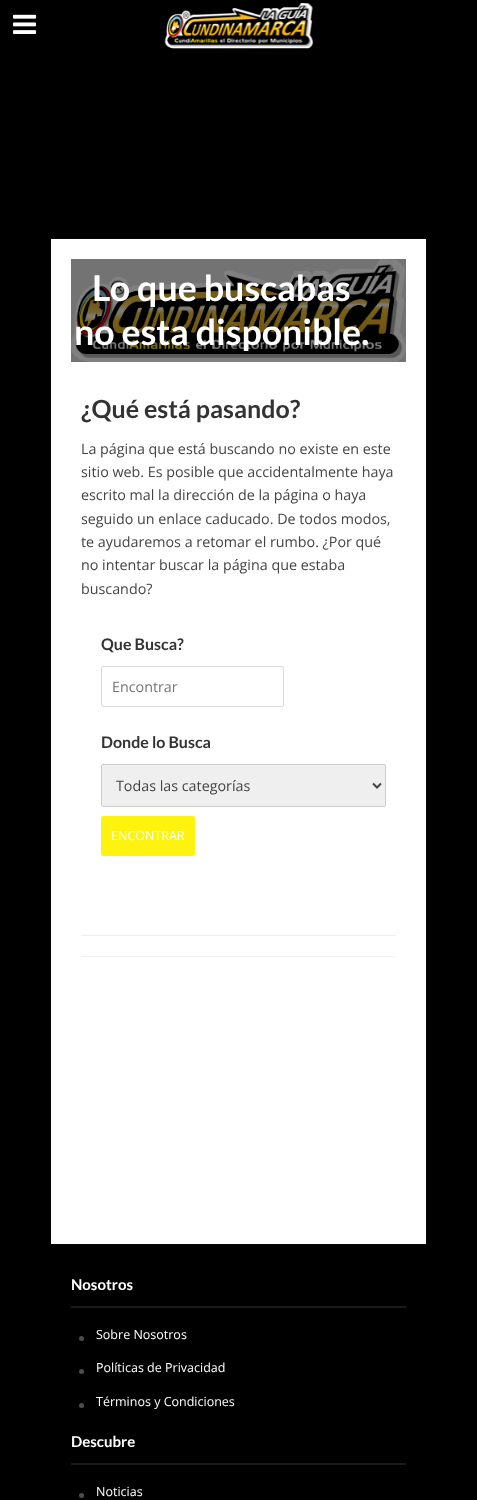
<!DOCTYPE html>
<meta charset="utf-8">
<style>body { margin: 0 } canvas { display: block }</style>
<canvas id="canvas" width="477" height="1500"></canvas>
<script type="module">
  const canvas = document.getElementById("canvas");
  const ctx = canvas.getContext("2d");
  ctx.miterLimit = 4;
  ctx.fontKerning = "normal";
  async function loadImage(src) {
    const img = new Image();
    img.src = src;
    await img.decode();
    return img;
  }

  ctx.fillStyle = "#000000";
  ctx.fillRect(0, 0, 477, 1500);
  ctx.drawImage(await loadImage("img1.png"), 13, 14, 24, 20);
  ctx.drawImage(await loadImage("img2.png"), 164, 3, 150, 46);
  ctx.strokeStyle = "#070707";
  ctx.strokeRect(50.5, 238.5, 376, 1006);
  ctx.fillStyle = "#ffffff";
  ctx.fillRect(51, 239, 375, 1005);
  ctx.fillStyle = "#737373";
  ctx.fillRect(71, 259, 335, 103);
  ctx.drawImage(await loadImage("img3.png"), 71, 259, 335, 103);
  ctx.font = "bold 35.75px Lato";
  ctx.fillStyle = "#ffffff";
  ctx.fillText("Lo que buscabas", 92, 301);
  ctx.fillText("no esta disponible.", 74, 345);
  ctx.font = "bold 25px Lato";
  ctx.fillStyle = "#333333";
  ctx.fillText("¿Qué está pasando?", 81, 418);
  ctx.font = "14.3px Open Sans";
  ctx.fillStyle = "#444444";
  ctx.fillText("La página que está buscando no existe en este", 81, 454);
  ctx.fillText("sitio web. Es posible que accidentalmente haya", 81, 477);
  ctx.fillText("escrito mal la dirección de la página o haya", 81, 500);
  ctx.fillText("seguido un enlace caducado. De todos modos,", 81, 524);
  ctx.fillText("te ayudaremos a retomar el rumbo. ¿Por qué", 81, 547);
  ctx.fillText("no intentar buscar la página que estaba", 81, 570);
  ctx.fillText("buscando?", 81, 594);
  ctx.font = "bold 16px Lato";
  ctx.fillStyle = "#333333";
  ctx.fillText("Que Busca?", 101, 650);
  ctx.beginPath();
  ctx.roundRect(101.5, 666.5, 182, 40, 1.5);
  ctx.strokeStyle = "#dadada";
  ctx.stroke();
  ctx.font = "14.3px Open Sans";
  ctx.fillStyle = "#757575";
  ctx.fillText("Encontrar", 112, 692);
  ctx.font = "bold 16px Lato";
  ctx.fillStyle = "#333333";
  ctx.fillText("Donde lo Busca", 101, 748);
  ctx.fillStyle = "#efefef";
  ctx.beginPath();
  ctx.roundRect(101.5, 764.5, 284, 42, 1.5);
  ctx.fill();
  ctx.strokeStyle = "#cdcdcd";
  ctx.stroke();
  ctx.beginPath();
  ctx.moveTo(373, 783.5);
  ctx.lineTo(377, 787.5);
  ctx.lineTo(381, 783.5);
  ctx.strokeStyle = "#444444";
  ctx.lineWidth = 2;
  ctx.stroke();
  ctx.font = "14.3px Open Sans";
  ctx.fillStyle = "#444444";
  ctx.fillText("Todas las categorías", 116, 791);
  ctx.fillStyle = "#fef30e";
  ctx.beginPath();
  ctx.roundRect(101, 816, 94, 40, 2);
  ctx.fill();
  ctx.font = "12.5px Open Sans";
  ctx.fillStyle = "#ffffff";
  ctx.fillText("ENCONTRAR", 111, 840);
  ctx.fillStyle = "#eeeeee";
  ctx.fillRect(81, 935, 315, 1);
  ctx.fillRect(81, 956, 315, 1);
  ctx.font = "bold 15px Lato";
  ctx.fillStyle = "#ffffff";
  ctx.fillText("Nosotros", 71, 1290);
  ctx.fillStyle = "#1a1a1a";
  ctx.fillRect(71, 1306, 335, 2);
  ctx.fillStyle = "#4d4d4d";
  ctx.beginPath();
  ctx.arc(81.5, 1338.5, 2.5, 0, Math.PI * 2);
  ctx.fill();
  ctx.font = "12.5px Open Sans";
  ctx.fillStyle = "#ffffff";
  ctx.fillText("Sobre Nosotros", 96, 1339);
  ctx.fillStyle = "#4d4d4d";
  ctx.beginPath();
  ctx.arc(81.5, 1371.5, 2.5, 0, Math.PI * 2);
  ctx.fill();
  ctx.fillStyle = "#ffffff";
  ctx.fillText("Políticas de Privacidad", 96, 1372);
  ctx.fillStyle = "#4d4d4d";
  ctx.beginPath();
  ctx.arc(81.5, 1405.5, 2.5, 0, Math.PI * 2);
  ctx.fill();
  ctx.fillStyle = "#ffffff";
  ctx.fillText("Términos y Condiciones", 96, 1406);
  ctx.font = "bold 15px Lato";
  ctx.fillText("Descubre", 71, 1447);
  ctx.fillStyle = "#1a1a1a";
  ctx.fillRect(71, 1463, 335, 2);
  ctx.fillStyle = "#4d4d4d";
  ctx.beginPath();
  ctx.arc(81.5, 1495.5, 2.5, 0, Math.PI * 2);
  ctx.fill();
  ctx.font = "12.5px Open Sans";
  ctx.fillStyle = "#ffffff";
  ctx.fillText("Noticias", 96, 1496);
</script>
